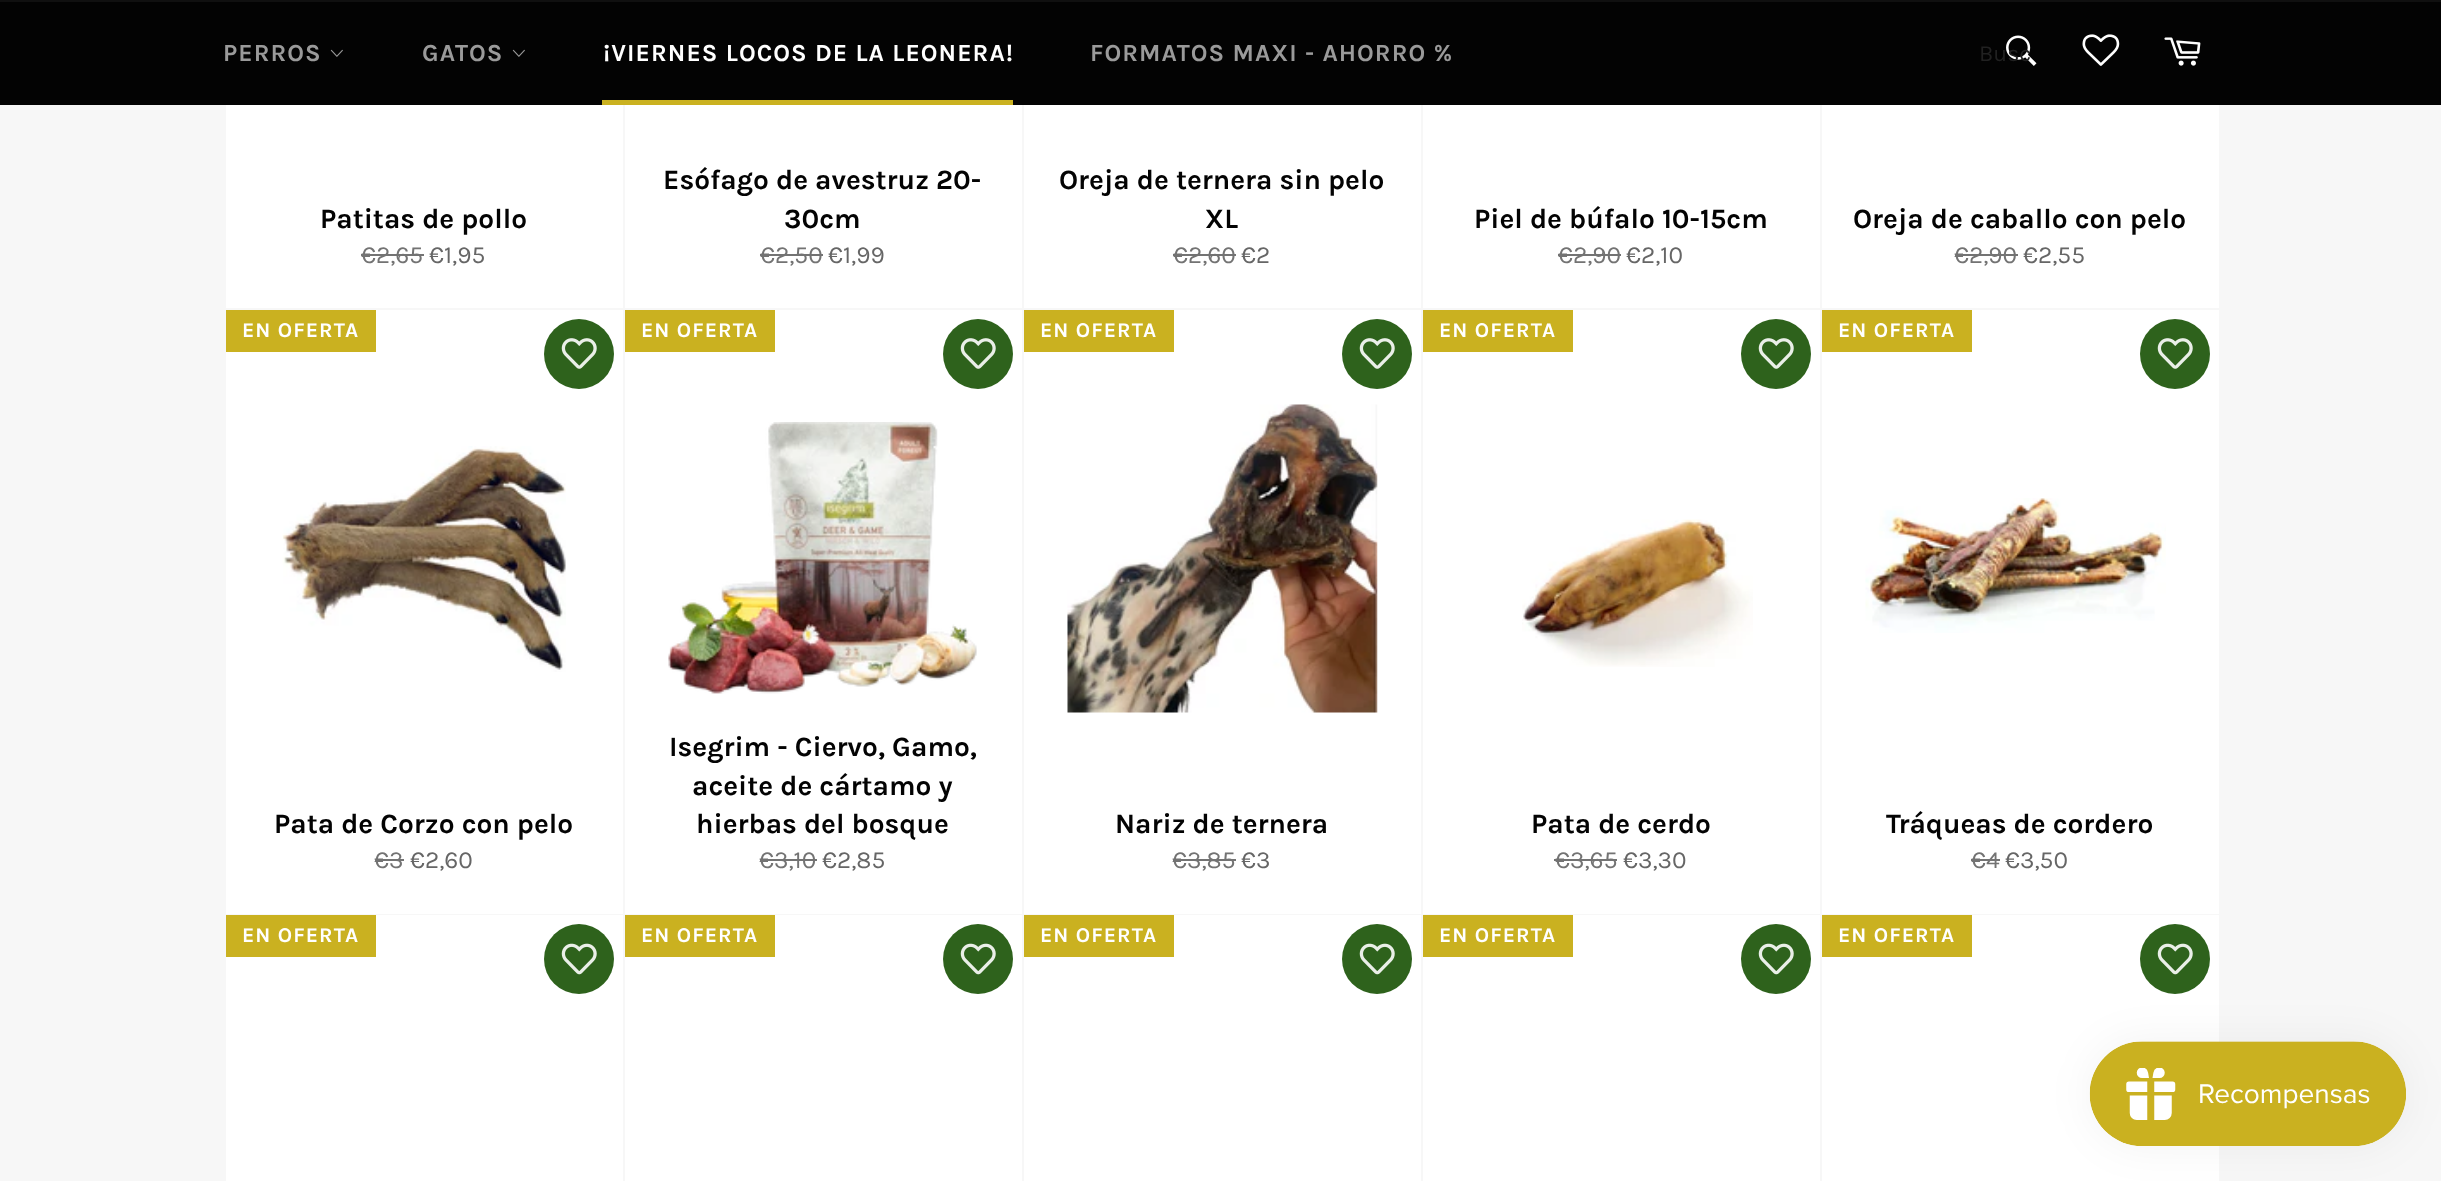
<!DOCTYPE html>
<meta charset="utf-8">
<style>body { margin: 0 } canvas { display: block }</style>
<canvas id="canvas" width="2441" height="1181"></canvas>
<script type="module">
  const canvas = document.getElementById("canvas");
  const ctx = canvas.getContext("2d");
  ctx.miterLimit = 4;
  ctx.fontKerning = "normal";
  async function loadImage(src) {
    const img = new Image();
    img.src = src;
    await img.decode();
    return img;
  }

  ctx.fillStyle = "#f7f7f7";
  ctx.fillRect(0, 0, 2441, 1181);
  ctx.fillStyle = "#030303";
  ctx.fillRect(0, 2, 2441, 103);
  ctx.fillStyle = "#101010";
  ctx.fillRect(0, 0, 2441, 2);
  ctx.letterSpacing = "1.05px";
  ctx.font = "bold 24.5px Karla";
  ctx.fillStyle = "#9a9a9a";
  ctx.fillText("PERROS", 223, 61);
  ctx.drawImage(await loadImage("img1.png"), 330, 49, 13, 8);
  ctx.fillText("GATOS", 422, 61);
  ctx.drawImage(await loadImage("img1.png"), 512, 49, 13, 8);
  ctx.fillStyle = "#ffffff";
  ctx.fillText("¡VIERNES LOCOS DE LA LEONERA!", 603, 61);
  ctx.fillStyle = "#cab120";
  ctx.fillRect(602, 100, 411, 5);
  ctx.fillStyle = "#9a9a9a";
  ctx.fillText("FORMATOS MAXI - AHORRO %", 1090, 61);
  ctx.drawImage(await loadImage("img2.png"), 2006, 35, 31, 31);
  ctx.letterSpacing = "0px";
  ctx.font = "23px Karla";
  ctx.fillStyle = "#212121";
  ctx.fillText("Busc", 1979, 61);
  ctx.drawImage(await loadImage("img3.png"), 2082, 34, 38, 32);
  ctx.drawImage(await loadImage("img4.png"), 2164, 37, 37, 29);
  ctx.fillStyle = "#ffffff";
  ctx.fillRect(226, 105, 397, 203);
  ctx.font = "bold 28px Karla";
  ctx.fillStyle = "#030303";
  ctx.fillText("Patitas de pollo", 320, 228);
  ctx.font = "24.5px Karla";
  ctx.fillStyle = "#737373";
  ctx.fillText("€2,65", 361, 263);
  ctx.fillRect(361, 254, 63, 2);
  ctx.fillStyle = "#666666";
  ctx.fillText("€1,95", 429, 263);
  ctx.fillStyle = "#ffffff";
  ctx.fillRect(625, 105, 397, 203);
  ctx.font = "bold 28px Karla";
  ctx.fillStyle = "#030303";
  ctx.fillText("Esófago de avestruz 20-", 663, 189);
  ctx.fillText("30cm", 784, 228);
  ctx.font = "24.5px Karla";
  ctx.fillStyle = "#737373";
  ctx.fillText("€2,50", 760, 263);
  ctx.fillRect(760, 254, 63, 2);
  ctx.fillStyle = "#666666";
  ctx.fillText("€1,99", 828, 263);
  ctx.fillStyle = "#ffffff";
  ctx.fillRect(1024, 105, 397, 203);
  ctx.font = "bold 28px Karla";
  ctx.fillStyle = "#030303";
  ctx.fillText("Oreja de ternera sin pelo", 1059, 189);
  ctx.fillText("XL", 1205, 228);
  ctx.font = "24.5px Karla";
  ctx.fillStyle = "#737373";
  ctx.fillText("€2,60", 1173, 263);
  ctx.fillRect(1173, 254, 63, 2);
  ctx.fillStyle = "#666666";
  ctx.fillText("€2", 1241, 263);
  ctx.fillStyle = "#ffffff";
  ctx.fillRect(1423, 105, 397, 203);
  ctx.font = "bold 28px Karla";
  ctx.fillStyle = "#030303";
  ctx.fillText("Piel de búfalo 10-15cm", 1474, 228);
  ctx.font = "24.5px Karla";
  ctx.fillStyle = "#737373";
  ctx.fillText("€2,90", 1558, 263);
  ctx.fillRect(1558, 254, 63, 2);
  ctx.fillStyle = "#666666";
  ctx.fillText("€2,10", 1626, 263);
  ctx.fillStyle = "#ffffff";
  ctx.fillRect(1822, 105, 397, 203);
  ctx.font = "bold 28px Karla";
  ctx.fillStyle = "#030303";
  ctx.fillText("Oreja de caballo con pelo", 1853, 228);
  ctx.font = "24.5px Karla";
  ctx.fillStyle = "#737373";
  ctx.fillText("€2,90", 1954, 263);
  ctx.fillRect(1955, 254, 63, 2);
  ctx.fillStyle = "#666666";
  ctx.fillText("€2,55", 2023, 263);
  ctx.fillStyle = "#ffffff";
  ctx.fillRect(226, 310, 397, 604);
  ctx.fillStyle = "#cab120";
  ctx.fillRect(226, 310, 150, 42);
  ctx.letterSpacing = "1.05px";
  ctx.font = "bold 21px Karla";
  ctx.fillStyle = "#ffffff";
  ctx.fillText("EN OFERTA", 242, 337);
  ctx.fillStyle = "#2e621c";
  ctx.beginPath();
  ctx.arc(579, 354, 35, 0, Math.PI * 2);
  ctx.fill();
  ctx.drawImage(await loadImage("img5.png"), 561, 338, 36, 31);
  ctx.drawImage(await loadImage("img6.png"), 282, 446, 284, 226);
  ctx.letterSpacing = "0px";
  ctx.font = "bold 28px Karla";
  ctx.fillStyle = "#030303";
  ctx.fillText("Pata de Corzo con pelo", 274, 833);
  ctx.font = "24.5px Karla";
  ctx.fillStyle = "#737373";
  ctx.fillText("€3", 374, 868);
  ctx.fillRect(375, 859, 29, 2);
  ctx.fillStyle = "#666666";
  ctx.fillText("€2,60", 410, 868);
  ctx.fillStyle = "#ffffff";
  ctx.fillRect(625, 310, 397, 604);
  ctx.fillStyle = "#cab120";
  ctx.fillRect(625, 310, 150, 42);
  ctx.letterSpacing = "1.05px";
  ctx.font = "bold 21px Karla";
  ctx.fillStyle = "#ffffff";
  ctx.fillText("EN OFERTA", 641, 337);
  ctx.fillStyle = "#2e621c";
  ctx.beginPath();
  ctx.arc(978, 354, 35, 0, Math.PI * 2);
  ctx.fill();
  ctx.drawImage(await loadImage("img5.png"), 960, 338, 36, 31);
  ctx.drawImage(await loadImage("img7.png"), 668, 422, 309, 272);
  ctx.letterSpacing = "0px";
  ctx.font = "bold 28px Karla";
  ctx.fillStyle = "#030303";
  ctx.fillText("Isegrim - Ciervo, Gamo,", 669, 756);
  ctx.fillText("aceite de cártamo y", 692, 795);
  ctx.fillText("hierbas del bosque", 696, 833);
  ctx.font = "24.5px Karla";
  ctx.fillStyle = "#737373";
  ctx.fillText("€3,10", 759, 868);
  ctx.fillRect(760, 859, 57, 2);
  ctx.fillStyle = "#666666";
  ctx.fillText("€2,85", 822, 868);
  ctx.fillStyle = "#ffffff";
  ctx.fillRect(1024, 310, 397, 604);
  ctx.fillStyle = "#cab120";
  ctx.fillRect(1024, 310, 150, 42);
  ctx.letterSpacing = "1.05px";
  ctx.font = "bold 21px Karla";
  ctx.fillStyle = "#ffffff";
  ctx.fillText("EN OFERTA", 1040, 337);
  ctx.fillStyle = "#2e621c";
  ctx.beginPath();
  ctx.arc(1377, 354, 35, 0, Math.PI * 2);
  ctx.fill();
  ctx.drawImage(await loadImage("img5.png"), 1359, 338, 36, 31);
  ctx.drawImage(await loadImage("img8.png"), 1067, 404, 311, 309);
  ctx.letterSpacing = "0px";
  ctx.font = "bold 28px Karla";
  ctx.fillStyle = "#030303";
  ctx.fillText("Nariz de ternera", 1115, 833);
  ctx.font = "24.5px Karla";
  ctx.fillStyle = "#737373";
  ctx.fillText("€3,85", 1172, 868);
  ctx.fillRect(1173, 859, 63, 2);
  ctx.fillStyle = "#666666";
  ctx.fillText("€3", 1241, 868);
  ctx.fillStyle = "#ffffff";
  ctx.fillRect(1423, 310, 397, 604);
  ctx.fillStyle = "#cab120";
  ctx.fillRect(1423, 310, 150, 42);
  ctx.letterSpacing = "1.05px";
  ctx.font = "bold 21px Karla";
  ctx.fillStyle = "#ffffff";
  ctx.fillText("EN OFERTA", 1439, 337);
  ctx.fillStyle = "#2e621c";
  ctx.beginPath();
  ctx.arc(1776, 354, 35, 0, Math.PI * 2);
  ctx.fill();
  ctx.drawImage(await loadImage("img5.png"), 1758, 338, 36, 31);
  ctx.drawImage(await loadImage("img9.png"), 1522, 519, 231, 148);
  ctx.letterSpacing = "0px";
  ctx.font = "bold 28px Karla";
  ctx.fillStyle = "#030303";
  ctx.fillText("Pata de cerdo", 1531, 833);
  ctx.font = "24.5px Karla";
  ctx.fillStyle = "#737373";
  ctx.fillText("€3,65", 1555, 868);
  ctx.fillRect(1554, 859, 63, 2);
  ctx.fillStyle = "#666666";
  ctx.fillText("€3,30", 1623, 868);
  ctx.fillStyle = "#ffffff";
  ctx.fillRect(1822, 310, 397, 604);
  ctx.fillStyle = "#cab120";
  ctx.fillRect(1822, 310, 150, 42);
  ctx.letterSpacing = "1.05px";
  ctx.font = "bold 21px Karla";
  ctx.fillStyle = "#ffffff";
  ctx.fillText("EN OFERTA", 1838, 337);
  ctx.fillStyle = "#2e621c";
  ctx.beginPath();
  ctx.arc(2175, 354, 35, 0, Math.PI * 2);
  ctx.fill();
  ctx.drawImage(await loadImage("img5.png"), 2157, 338, 36, 31);
  ctx.drawImage(await loadImage("img10.png"), 1865, 498, 301, 135);
  ctx.letterSpacing = "0px";
  ctx.font = "bold 28px Karla";
  ctx.fillStyle = "#030303";
  ctx.fillText("Tráqueas de cordero", 1886, 833);
  ctx.font = "24.5px Karla";
  ctx.fillStyle = "#737373";
  ctx.fillText("€4", 1971, 868);
  ctx.fillRect(1971, 859, 29, 2);
  ctx.fillStyle = "#666666";
  ctx.fillText("€3,50", 2005, 868);
  ctx.fillStyle = "#ffffff";
  ctx.fillRect(226, 915, 397, 266);
  ctx.fillStyle = "#cab120";
  ctx.fillRect(226, 915, 150, 42);
  ctx.letterSpacing = "1.05px";
  ctx.font = "bold 21px Karla";
  ctx.fillStyle = "#ffffff";
  ctx.fillText("EN OFERTA", 242, 942);
  ctx.fillStyle = "#2e621c";
  ctx.beginPath();
  ctx.arc(579, 959, 35, 0, Math.PI * 2);
  ctx.fill();
  ctx.drawImage(await loadImage("img11.png"), 561, 943, 36, 32);
  ctx.fillStyle = "#ffffff";
  ctx.fillRect(625, 915, 397, 266);
  ctx.fillStyle = "#cab120";
  ctx.fillRect(625, 915, 150, 42);
  ctx.fillStyle = "#ffffff";
  ctx.fillText("EN OFERTA", 641, 942);
  ctx.fillStyle = "#2e621c";
  ctx.beginPath();
  ctx.arc(978, 959, 35, 0, Math.PI * 2);
  ctx.fill();
  ctx.drawImage(await loadImage("img11.png"), 960, 943, 36, 32);
  ctx.fillStyle = "#ffffff";
  ctx.fillRect(1024, 915, 397, 266);
  ctx.fillStyle = "#cab120";
  ctx.fillRect(1024, 915, 150, 42);
  ctx.fillStyle = "#ffffff";
  ctx.fillText("EN OFERTA", 1040, 942);
  ctx.fillStyle = "#2e621c";
  ctx.beginPath();
  ctx.arc(1377, 959, 35, 0, Math.PI * 2);
  ctx.fill();
  ctx.drawImage(await loadImage("img11.png"), 1359, 943, 36, 32);
  ctx.fillStyle = "#ffffff";
  ctx.fillRect(1423, 915, 397, 266);
  ctx.fillStyle = "#cab120";
  ctx.fillRect(1423, 915, 150, 42);
  ctx.fillStyle = "#ffffff";
  ctx.fillText("EN OFERTA", 1439, 942);
  ctx.fillStyle = "#2e621c";
  ctx.beginPath();
  ctx.arc(1776, 959, 35, 0, Math.PI * 2);
  ctx.fill();
  ctx.drawImage(await loadImage("img11.png"), 1758, 943, 36, 32);
  ctx.fillStyle = "#ffffff";
  ctx.fillRect(1822, 915, 397, 266);
  ctx.fillStyle = "#cab120";
  ctx.fillRect(1822, 915, 150, 42);
  ctx.fillStyle = "#ffffff";
  ctx.fillText("EN OFERTA", 1838, 942);
  ctx.fillStyle = "#2e621c";
  ctx.beginPath();
  ctx.arc(2175, 959, 35, 0, Math.PI * 2);
  ctx.fill();
  ctx.drawImage(await loadImage("img11.png"), 2157, 943, 36, 32);
  ctx.fillStyle = "rgba(0, 0, 0, 0.05)";
  ctx.filter = "blur(22px)";
  ctx.beginPath();
  ctx.roundRect(2090, 1041, 316, 105, 52.5);
  ctx.fill();
  ctx.filter = "none";
  ctx.drawImage(await loadImage("img12.png"), 2089, 1041, 317, 105);
</script>
